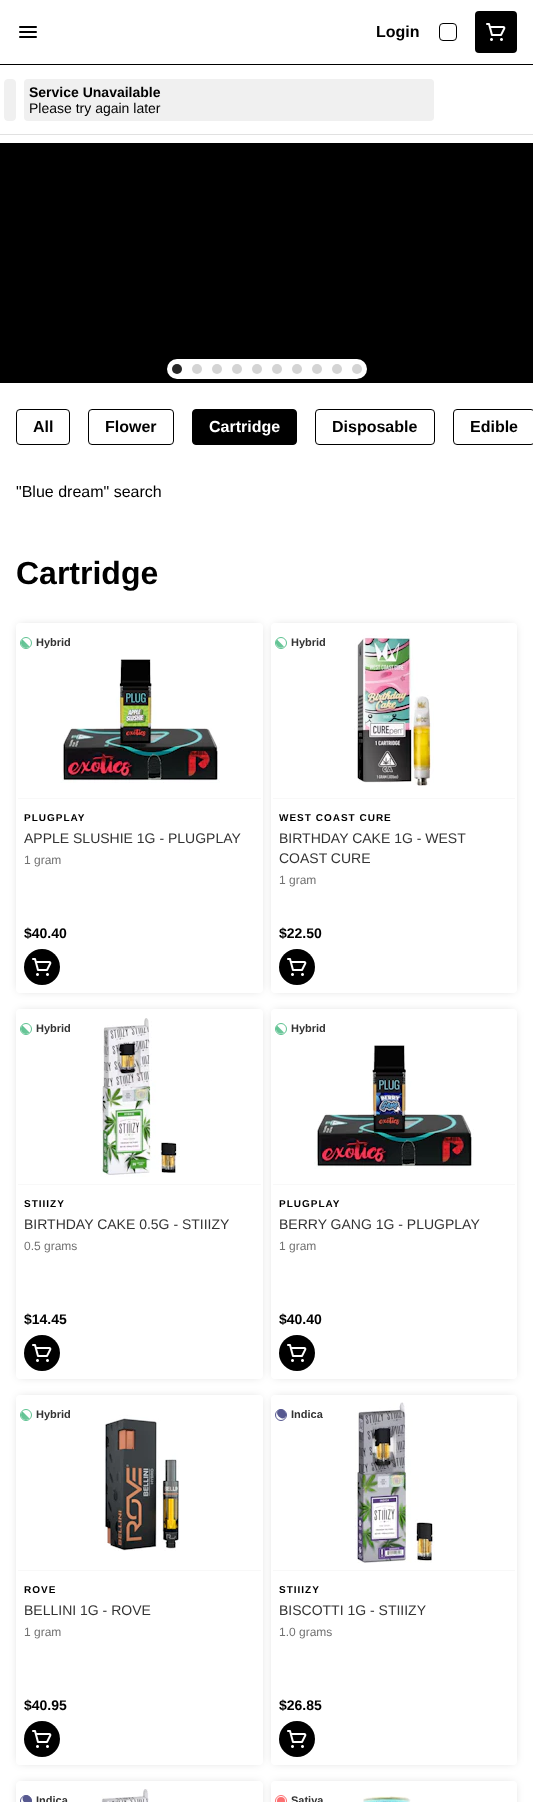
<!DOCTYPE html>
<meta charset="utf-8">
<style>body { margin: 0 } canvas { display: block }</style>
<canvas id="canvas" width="533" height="1802"></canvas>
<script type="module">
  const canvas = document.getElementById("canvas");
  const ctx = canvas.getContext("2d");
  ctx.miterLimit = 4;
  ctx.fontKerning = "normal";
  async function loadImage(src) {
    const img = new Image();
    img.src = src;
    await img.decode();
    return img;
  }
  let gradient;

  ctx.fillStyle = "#ffffff";
  ctx.fillRect(0, 0, 533, 1802);
  ctx.fillStyle = "#000000";
  ctx.fillRect(0, 64, 533, 1);
  ctx.beginPath();
  ctx.roundRect(19, 31, 18, 2, 1);
  ctx.fill();
  ctx.beginPath();
  ctx.roundRect(19, 36, 18, 2, 1);
  ctx.fill();
  ctx.beginPath();
  ctx.roundRect(19, 26, 18, 2, 1);
  ctx.fill();
  ctx.font = "bold 16px Liberation Sans";
  ctx.fillText("Login", 376, 37);
  ctx.beginPath();
  ctx.roundRect(439.5, 23.5, 17, 17, 3.5);
  ctx.strokeStyle = "#000000";
  ctx.stroke();
  ctx.beginPath();
  ctx.roundRect(475, 11, 42, 42, 4);
  ctx.fill();
  ctx.drawImage(await loadImage("img1.png"), 486, 23, 20, 18);
  ctx.fillStyle = "#e1e1e1";
  ctx.fillRect(0, 134, 533, 1);
  ctx.fillStyle = "#f0f0f0";
  ctx.beginPath();
  ctx.roundRect(4.5, 79.5, 11, 41, 3.5);
  ctx.fill();
  ctx.strokeStyle = "#f0f0f0";
  ctx.stroke();
  ctx.beginPath();
  ctx.roundRect(24, 79, 410, 42, 4);
  ctx.fill();
  ctx.font = "bold 14px Liberation Sans";
  ctx.fillStyle = "#000000";
  ctx.fillText("Service Unavailable", 29, 97);
  ctx.font = "14px Liberation Sans";
  ctx.fillText("Please try again later", 29, 113);
  ctx.fillRect(0, 143, 533, 240);
  ctx.fillStyle = "#ffffff";
  ctx.beginPath();
  ctx.roundRect(167, 359, 200, 20, 10);
  ctx.fill();
  ctx.fillStyle = "#272727";
  ctx.beginPath();
  ctx.arc(177, 369, 5, 0, Math.PI * 2);
  ctx.fill();
  ctx.fillStyle = "#d4d4d4";
  ctx.beginPath();
  ctx.arc(197, 369, 5, 0, Math.PI * 2);
  ctx.fill();
  ctx.beginPath();
  ctx.arc(217, 369, 5, 0, Math.PI * 2);
  ctx.fill();
  ctx.beginPath();
  ctx.arc(237, 369, 5, 0, Math.PI * 2);
  ctx.fill();
  ctx.beginPath();
  ctx.arc(257, 369, 5, 0, Math.PI * 2);
  ctx.fill();
  ctx.beginPath();
  ctx.arc(277, 369, 5, 0, Math.PI * 2);
  ctx.fill();
  ctx.beginPath();
  ctx.arc(297, 369, 5, 0, Math.PI * 2);
  ctx.fill();
  ctx.beginPath();
  ctx.arc(317, 369, 5, 0, Math.PI * 2);
  ctx.fill();
  ctx.beginPath();
  ctx.arc(337, 369, 5, 0, Math.PI * 2);
  ctx.fill();
  ctx.beginPath();
  ctx.arc(357, 369, 5, 0, Math.PI * 2);
  ctx.fill();
  ctx.beginPath();
  ctx.roundRect(16.5, 409.5, 53, 35, 3.5);
  ctx.strokeStyle = "#000000";
  ctx.stroke();
  ctx.font = "bold 16px Liberation Sans";
  ctx.fillStyle = "#000000";
  ctx.fillText("All", 33, 432);
  ctx.beginPath();
  ctx.roundRect(88.5, 409.5, 85, 35, 3.5);
  ctx.stroke();
  ctx.fillText("Flower", 105, 432);
  ctx.beginPath();
  ctx.roundRect(192.5, 409.5, 104, 35, 3.5);
  ctx.fill();
  ctx.stroke();
  ctx.fillStyle = "#ffffff";
  ctx.fillText("Cartridge", 209, 432);
  ctx.beginPath();
  ctx.roundRect(315.5, 409.5, 119, 35, 3.5);
  ctx.stroke();
  ctx.fillStyle = "#000000";
  ctx.fillText("Disposable", 332, 432);
  ctx.beginPath();
  ctx.roundRect(453.5, 409.5, 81, 35, 3.5);
  ctx.stroke();
  ctx.fillText("Edible", 470, 432);
  ctx.font = "16px Liberation Sans";
  ctx.fillText("\"Blue dream\" search", 16, 497);
  ctx.font = "bold 32px Liberation Sans";
  ctx.fillText("Cartridge", 16, 584);
  ctx.fillStyle = "rgba(0, 0, 0, 0.2)";
  ctx.filter = "blur(5px)";
  ctx.beginPath();
  ctx.roundRect(19, 626, 241, 364, 1);
  ctx.fill();
  ctx.filter = "none";
  ctx.fillStyle = "#ffffff";
  ctx.beginPath();
  ctx.roundRect(16, 623, 247, 370, 4);
  ctx.fill();
  ctx.beginPath();
  ctx.arc(26, 643, 5.5, 0, Math.PI * 2);
  ctx.strokeStyle = "#5ec291";
  ctx.stroke();
  gradient = ctx.createRadialGradient(21, 641, 0, 21, 641, 100);
  gradient.addColorStop(0, "#5ec291");
  gradient.addColorStop(1, "#ffffff");
  ctx.fillStyle = gradient;
  ctx.beginPath();
  ctx.moveTo(29.5, 646.5);
  ctx.bezierCurveTo(24.5, 651, 18, 644, 22.5, 639.5);
  ctx.closePath();
  ctx.fill();
  ctx.font = "bold 11px Liberation Sans";
  ctx.fillStyle = "#333333";
  ctx.fillText("Hybrid", 36, 646);
  ctx.fillStyle = "#f8f8f8";
  ctx.fillRect(18, 798, 243, 1);
  ctx.drawImage(await loadImage("img2.png"), 60, 659, 160, 124);
  ctx.letterSpacing = "1px";
  ctx.font = "bold 10px Liberation Sans";
  ctx.fillStyle = "#000000";
  ctx.fillText("PLUGPLAY", 24, 821);
  ctx.letterSpacing = "0px";
  ctx.font = "14px Liberation Sans";
  ctx.fillStyle = "#333333";
  ctx.fillText("APPLE SLUSHIE 1G - PLUGPLAY", 24, 843);
  ctx.font = "12px Liberation Sans";
  ctx.fillStyle = "#727272";
  ctx.fillText("1 gram", 24, 864);
  ctx.font = "bold 14px Liberation Sans";
  ctx.fillStyle = "#000000";
  ctx.fillText("$40.40", 24, 938);
  ctx.beginPath();
  ctx.arc(42, 967, 18, 0, Math.PI * 2);
  ctx.fill();
  ctx.drawImage(await loadImage("img1.png"), 32, 958, 20, 18);
  ctx.fillStyle = "rgba(0, 0, 0, 0.2)";
  ctx.filter = "blur(5px)";
  ctx.beginPath();
  ctx.roundRect(274, 626, 240, 364, 1);
  ctx.fill();
  ctx.filter = "none";
  ctx.fillStyle = "#ffffff";
  ctx.beginPath();
  ctx.roundRect(271, 623, 246, 370, 4);
  ctx.fill();
  ctx.fillStyle = "#f8f8f8";
  ctx.fillRect(273, 798, 242, 1);
  ctx.drawImage(await loadImage("img3.png"), 354, 635, 80, 151);
  ctx.beginPath();
  ctx.arc(281, 643, 5.5, 0, Math.PI * 2);
  ctx.stroke();
  gradient = ctx.createRadialGradient(275, 641, 0, 275, 641, 100);
  gradient.addColorStop(0, "#5ec291");
  gradient.addColorStop(1, "#ffffff");
  ctx.fillStyle = gradient;
  ctx.beginPath();
  ctx.moveTo(284, 646.5);
  ctx.bezierCurveTo(279.5, 650.5, 273.5, 644, 277, 639.5);
  ctx.closePath();
  ctx.fill();
  ctx.font = "bold 11px Liberation Sans";
  ctx.fillStyle = "#333333";
  ctx.fillText("Hybrid", 291, 646);
  ctx.letterSpacing = "1px";
  ctx.font = "bold 10px Liberation Sans";
  ctx.fillStyle = "#000000";
  ctx.fillText("WEST COAST CURE", 279, 821);
  ctx.letterSpacing = "0px";
  ctx.font = "14px Liberation Sans";
  ctx.fillStyle = "#333333";
  ctx.fillText("BIRTHDAY CAKE 1G - WEST", 279, 843);
  ctx.fillText("COAST CURE", 279, 863);
  ctx.font = "12px Liberation Sans";
  ctx.fillStyle = "#727272";
  ctx.fillText("1 gram", 279, 884);
  ctx.font = "bold 14px Liberation Sans";
  ctx.fillStyle = "#000000";
  ctx.fillText("$22.50", 279, 938);
  ctx.beginPath();
  ctx.arc(297, 967, 18, 0, Math.PI * 2);
  ctx.fill();
  ctx.drawImage(await loadImage("img1.png"), 287, 958, 20, 18);
  ctx.fillStyle = "rgba(0, 0, 0, 0.2)";
  ctx.filter = "blur(5px)";
  ctx.beginPath();
  ctx.roundRect(19, 1012, 241, 364, 1);
  ctx.fill();
  ctx.filter = "none";
  ctx.fillStyle = "#ffffff";
  ctx.beginPath();
  ctx.roundRect(16, 1009, 247, 370, 4);
  ctx.fill();
  ctx.fillStyle = "#f8f8f8";
  ctx.fillRect(18, 1184, 243, 1);
  ctx.drawImage(await loadImage("img4.png"), 100, 1018, 80, 159);
  ctx.beginPath();
  ctx.arc(26, 1029, 5.5, 0, Math.PI * 2);
  ctx.stroke();
  gradient = ctx.createRadialGradient(21, 1027, 0, 21, 1027, 100);
  gradient.addColorStop(0, "#5ec291");
  gradient.addColorStop(1, "#ffffff");
  ctx.fillStyle = gradient;
  ctx.beginPath();
  ctx.moveTo(29.5, 1032.5);
  ctx.bezierCurveTo(24.5, 1037, 18, 1030, 22.5, 1025.5);
  ctx.closePath();
  ctx.fill();
  ctx.font = "bold 11px Liberation Sans";
  ctx.fillStyle = "#333333";
  ctx.fillText("Hybrid", 36, 1032);
  ctx.letterSpacing = "1px";
  ctx.font = "bold 10px Liberation Sans";
  ctx.fillStyle = "#000000";
  ctx.fillText("STIIIZY", 24, 1207);
  ctx.letterSpacing = "0px";
  ctx.font = "14px Liberation Sans";
  ctx.fillStyle = "#333333";
  ctx.fillText("BIRTHDAY CAKE 0.5G - STIIIZY", 24, 1229);
  ctx.font = "12px Liberation Sans";
  ctx.fillStyle = "#727272";
  ctx.fillText("0.5 grams", 24, 1250);
  ctx.font = "bold 14px Liberation Sans";
  ctx.fillStyle = "#000000";
  ctx.fillText("$14.45", 24, 1324);
  ctx.beginPath();
  ctx.arc(42, 1353, 18, 0, Math.PI * 2);
  ctx.fill();
  ctx.drawImage(await loadImage("img1.png"), 32, 1344, 20, 18);
  ctx.fillStyle = "rgba(0, 0, 0, 0.2)";
  ctx.filter = "blur(5px)";
  ctx.beginPath();
  ctx.roundRect(274, 1012, 240, 364, 1);
  ctx.fill();
  ctx.filter = "none";
  ctx.fillStyle = "#ffffff";
  ctx.beginPath();
  ctx.roundRect(271, 1009, 246, 370, 4);
  ctx.fill();
  ctx.beginPath();
  ctx.arc(281, 1029, 5.5, 0, Math.PI * 2);
  ctx.stroke();
  gradient = ctx.createRadialGradient(275, 1027, 0, 275, 1027, 100);
  gradient.addColorStop(0, "#5ec291");
  gradient.addColorStop(1, "#ffffff");
  ctx.fillStyle = gradient;
  ctx.beginPath();
  ctx.moveTo(284, 1032.5);
  ctx.bezierCurveTo(279.5, 1036.5, 273.5, 1030, 277, 1025.5);
  ctx.closePath();
  ctx.fill();
  ctx.font = "bold 11px Liberation Sans";
  ctx.fillStyle = "#333333";
  ctx.fillText("Hybrid", 291, 1032);
  ctx.fillStyle = "#f8f8f8";
  ctx.fillRect(273, 1184, 242, 1);
  ctx.drawImage(await loadImage("img5.png"), 314, 1045, 160, 124);
  ctx.letterSpacing = "1px";
  ctx.font = "bold 10px Liberation Sans";
  ctx.fillStyle = "#000000";
  ctx.fillText("PLUGPLAY", 279, 1207);
  ctx.letterSpacing = "0px";
  ctx.font = "14px Liberation Sans";
  ctx.fillStyle = "#333333";
  ctx.fillText("BERRY GANG 1G - PLUGPLAY", 279, 1229);
  ctx.font = "12px Liberation Sans";
  ctx.fillStyle = "#727272";
  ctx.fillText("1 gram", 279, 1250);
  ctx.font = "bold 14px Liberation Sans";
  ctx.fillStyle = "#000000";
  ctx.fillText("$40.40", 279, 1324);
  ctx.beginPath();
  ctx.arc(297, 1353, 18, 0, Math.PI * 2);
  ctx.fill();
  ctx.drawImage(await loadImage("img1.png"), 287, 1344, 20, 18);
  ctx.fillStyle = "rgba(0, 0, 0, 0.2)";
  ctx.filter = "blur(5px)";
  ctx.beginPath();
  ctx.roundRect(19, 1398, 241, 364, 1);
  ctx.fill();
  ctx.filter = "none";
  ctx.fillStyle = "#ffffff";
  ctx.beginPath();
  ctx.roundRect(16, 1395, 247, 370, 4);
  ctx.fill();
  ctx.beginPath();
  ctx.arc(26, 1415, 5.5, 0, Math.PI * 2);
  ctx.stroke();
  gradient = ctx.createRadialGradient(21, 1413, 0, 21, 1413, 100);
  gradient.addColorStop(0, "#5ec291");
  gradient.addColorStop(1, "#ffffff");
  ctx.fillStyle = gradient;
  ctx.beginPath();
  ctx.moveTo(29.5, 1418.5);
  ctx.bezierCurveTo(24.5, 1423, 18, 1416, 22.5, 1411.5);
  ctx.closePath();
  ctx.fill();
  ctx.font = "bold 11px Liberation Sans";
  ctx.fillStyle = "#333333";
  ctx.fillText("Hybrid", 36, 1418);
  ctx.fillStyle = "#f8f8f8";
  ctx.fillRect(18, 1570, 243, 1);
  ctx.drawImage(await loadImage("img6.png"), 104, 1415, 76, 136);
  ctx.letterSpacing = "1px";
  ctx.font = "bold 10px Liberation Sans";
  ctx.fillStyle = "#000000";
  ctx.fillText("ROVE", 24, 1593);
  ctx.letterSpacing = "0px";
  ctx.font = "14px Liberation Sans";
  ctx.fillStyle = "#333333";
  ctx.fillText("BELLINI 1G - ROVE", 24, 1615);
  ctx.font = "12px Liberation Sans";
  ctx.fillStyle = "#727272";
  ctx.fillText("1 gram", 24, 1636);
  ctx.font = "bold 14px Liberation Sans";
  ctx.fillStyle = "#000000";
  ctx.fillText("$40.95", 24, 1710);
  ctx.beginPath();
  ctx.arc(42, 1739, 18, 0, Math.PI * 2);
  ctx.fill();
  ctx.drawImage(await loadImage("img1.png"), 32, 1730, 20, 18);
  ctx.fillStyle = "rgba(0, 0, 0, 0.2)";
  ctx.filter = "blur(5px)";
  ctx.beginPath();
  ctx.roundRect(274, 1398, 240, 364, 1);
  ctx.fill();
  ctx.filter = "none";
  ctx.fillStyle = "#ffffff";
  ctx.beginPath();
  ctx.roundRect(271, 1395, 246, 370, 4);
  ctx.fill();
  ctx.fillStyle = "#f8f8f8";
  ctx.fillRect(273, 1570, 242, 1);
  ctx.drawImage(await loadImage("img7.png"), 355, 1402, 80, 161);
  ctx.beginPath();
  ctx.arc(281, 1415, 5.5, 0, Math.PI * 2);
  ctx.strokeStyle = "#575990";
  ctx.stroke();
  ctx.fillStyle = "#575990";
  ctx.beginPath();
  ctx.moveTo(278, 1410.5);
  ctx.bezierCurveTo(282, 1406.5, 289, 1413.5, 285, 1417.5);
  ctx.bezierCurveTo(281.5, 1421, 274.5, 1414, 278, 1410.5);
  ctx.closePath();
  ctx.fill();
  ctx.font = "bold 11px Liberation Sans";
  ctx.fillStyle = "#333333";
  ctx.fillText("Indica", 291, 1418);
  ctx.letterSpacing = "1px";
  ctx.font = "bold 10px Liberation Sans";
  ctx.fillStyle = "#000000";
  ctx.fillText("STIIIZY", 279, 1593);
  ctx.letterSpacing = "0px";
  ctx.font = "14px Liberation Sans";
  ctx.fillStyle = "#333333";
  ctx.fillText("BISCOTTI 1G - STIIIZY", 279, 1615);
  ctx.font = "12px Liberation Sans";
  ctx.fillStyle = "#727272";
  ctx.fillText("1.0 grams", 279, 1636);
  ctx.font = "bold 14px Liberation Sans";
  ctx.fillStyle = "#000000";
  ctx.fillText("$26.85", 279, 1710);
  ctx.beginPath();
  ctx.arc(297, 1739, 18, 0, Math.PI * 2);
  ctx.fill();
  ctx.drawImage(await loadImage("img1.png"), 287, 1730, 20, 18);
  ctx.save();
  ctx.beginPath();
  ctx.moveTo(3, 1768);
  ctx.lineTo(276, 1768);
  ctx.lineTo(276, 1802);
  ctx.lineTo(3, 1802);
  ctx.closePath();
  ctx.moveTo(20, 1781);
  ctx.lineTo(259, 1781);
  ctx.bezierCurveTo(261, 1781, 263, 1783, 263, 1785);
  ctx.lineTo(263, 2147);
  ctx.bezierCurveTo(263, 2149, 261, 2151, 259, 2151);
  ctx.lineTo(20, 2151);
  ctx.bezierCurveTo(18, 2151, 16, 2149, 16, 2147);
  ctx.lineTo(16, 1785);
  ctx.bezierCurveTo(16, 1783, 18, 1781, 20, 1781);
  ctx.closePath();
  ctx.clip("evenodd");
  ctx.fillStyle = "rgba(0, 0, 0, 0.2)";
  ctx.filter = "blur(5px)";
  ctx.beginPath();
  ctx.roundRect(19, 1784, 241, 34, 1);
  ctx.fill();
  ctx.filter = "none";
  ctx.restore();
  ctx.beginPath();
  ctx.arc(26, 1801, 5.5, 0, Math.PI * 2);
  ctx.stroke();
  ctx.fillStyle = "#575990";
  ctx.beginPath();
  ctx.moveTo(23.5, 1796.5);
  ctx.bezierCurveTo(27.5, 1792.5, 34.5, 1799.5, 30.5, 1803.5);
  ctx.bezierCurveTo(27, 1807, 20, 1800, 23.5, 1796.5);
  ctx.closePath();
  ctx.fill();
  ctx.font = "bold 11px Liberation Sans";
  ctx.fillStyle = "#333333";
  ctx.fillText("Indica", 36, 1804);
  ctx.drawImage(await loadImage("img8.png"), 101, 1789, 48, 13);
  ctx.fillStyle = "rgba(0, 0, 0, 0.2)";
  ctx.filter = "blur(5px)";
  ctx.beginPath();
  ctx.roundRect(274, 1784, 240, 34, 1);
  ctx.fill();
  ctx.filter = "none";
  ctx.fillStyle = "#ffffff";
  ctx.beginPath();
  ctx.roundRect(271, 1781, 246, 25, 4);
  ctx.fill();
  ctx.beginPath();
  ctx.arc(281, 1801, 5.5, 0, Math.PI * 2);
  ctx.strokeStyle = "#fd6f71";
  ctx.stroke();
  ctx.fillStyle = "#fd6f71";
  ctx.beginPath();
  ctx.arc(281, 1801, 4, 0, Math.PI * 2);
  ctx.fill();
  ctx.fillStyle = "#333333";
  ctx.fillText("Sativa", 291, 1804);
  ctx.drawImage(await loadImage("img9.png"), 363, 1796, 48, 6);
</script>
